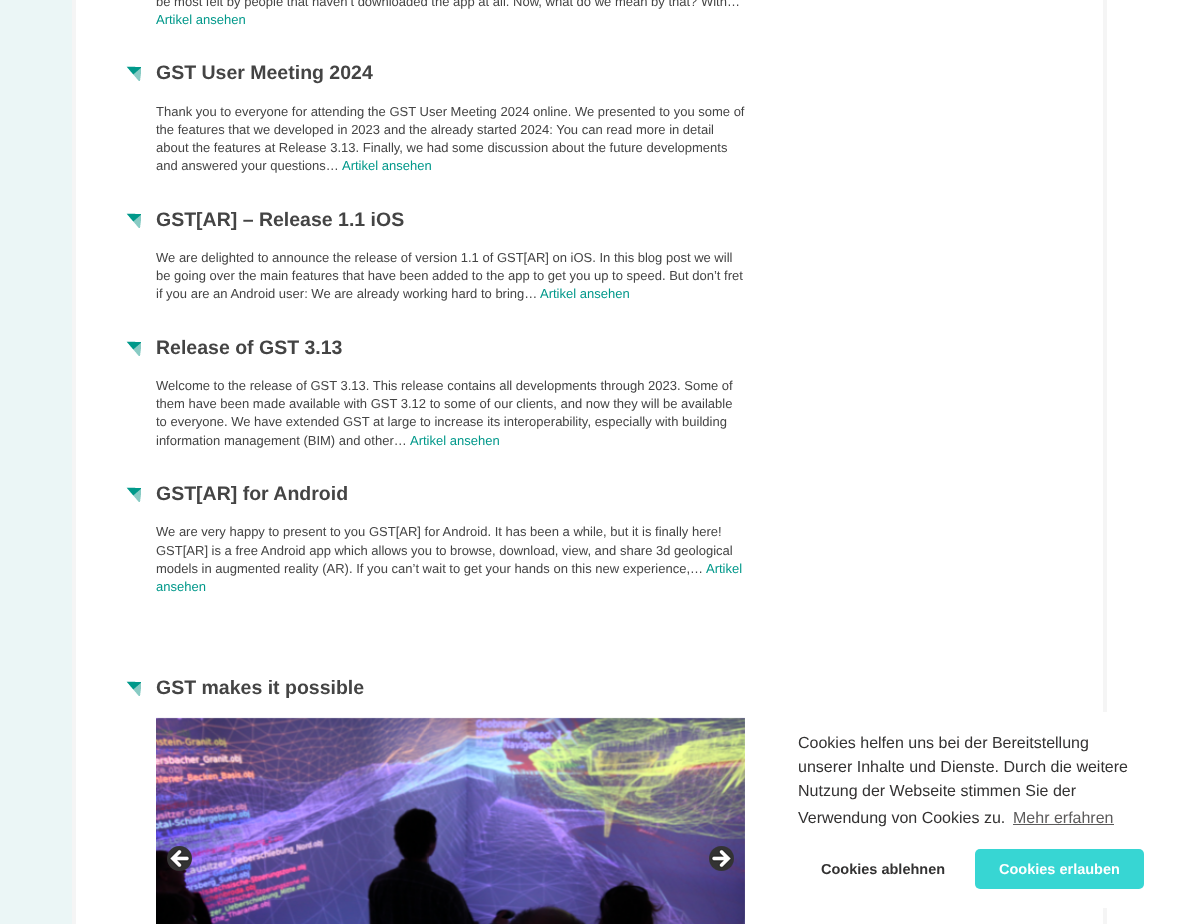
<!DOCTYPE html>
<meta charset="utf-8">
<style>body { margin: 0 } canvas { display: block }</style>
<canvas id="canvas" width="1179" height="924"></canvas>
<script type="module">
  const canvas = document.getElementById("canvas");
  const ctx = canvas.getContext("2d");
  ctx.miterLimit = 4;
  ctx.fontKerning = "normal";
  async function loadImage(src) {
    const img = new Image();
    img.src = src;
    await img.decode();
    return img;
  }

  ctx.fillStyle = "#ffffff";
  ctx.fillRect(0, 0, 1179, 924);
  ctx.drawImage(await loadImage("img1.png"), 0, 0, 72, 924);
  ctx.strokeStyle = "#f5f5f5";
  ctx.lineWidth = 4;
  ctx.strokeRect(74, -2, 1031, 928);
  ctx.font = "13px Liberation Sans";
  ctx.fillStyle = "#444444";
  ctx.fillText("be most felt by people that haven’t downloaded the app at all. Now, what do we mean by that? With…", 156, 6);
  ctx.fillStyle = "#00988a";
  ctx.fillText("Artikel ansehen", 156, 24);
  ctx.drawImage(await loadImage("img2.png"), 126, 66, 15, 15);
  ctx.font = "bold 19.5px Liberation Sans";
  ctx.fillStyle = "#444444";
  ctx.fillText("GST User Meeting 2024", 156, 79);
  ctx.font = "13px Liberation Sans";
  ctx.fillText("Thank you to everyone for attending the GST User Meeting 2024 online. We presented to you some of", 156, 116);
  ctx.fillText("the features that we developed in 2023 and the already started 2024: You can read more in detail", 156, 134);
  ctx.fillText("about the features at Release 3.13. Finally, we had some discussion about the future developments", 156, 152);
  ctx.fillText("and answered your questions…", 156, 170);
  ctx.fillStyle = "#00988a";
  ctx.fillText("Artikel ansehen", 342, 170);
  ctx.drawImage(await loadImage("img2.png"), 126, 213, 15, 15);
  ctx.font = "bold 19.5px Liberation Sans";
  ctx.fillStyle = "#444444";
  ctx.fillText("GST[AR] – Release 1.1 iOS", 156, 226);
  ctx.font = "13px Liberation Sans";
  ctx.fillText("We are delighted to announce the release of version 1.1 of GST[AR] on iOS. In this blog post we will", 156, 262);
  ctx.fillText("be going over the main features that have been added to the app to get you up to speed. But don’t fret", 156, 280);
  ctx.fillText("if you are an Android user: We are already working hard to bring…", 156, 298);
  ctx.fillStyle = "#00988a";
  ctx.fillText("Artikel ansehen", 540, 298);
  ctx.drawImage(await loadImage("img2.png"), 126, 341, 15, 15);
  ctx.font = "bold 19.5px Liberation Sans";
  ctx.fillStyle = "#444444";
  ctx.fillText("Release of GST 3.13", 156, 354);
  ctx.font = "13px Liberation Sans";
  ctx.fillText("Welcome to the release of GST 3.13. This release contains all developments through 2023. Some of", 156, 390);
  ctx.fillText("them have been made available with GST 3.12 to some of our clients, and now they will be available", 156, 408);
  ctx.fillText("to everyone. We have extended GST at large to increase its interoperability, especially with building", 156, 426);
  ctx.fillText("information management (BIM) and other…", 156, 445);
  ctx.fillStyle = "#00988a";
  ctx.fillText("Artikel ansehen", 410, 445);
  ctx.drawImage(await loadImage("img2.png"), 126, 487, 15, 15);
  ctx.font = "bold 19.5px Liberation Sans";
  ctx.fillStyle = "#444444";
  ctx.fillText("GST[AR] for Android", 156, 500);
  ctx.font = "13px Liberation Sans";
  ctx.fillText("We are very happy to present to you GST[AR] for Android. It has been a while, but it is finally here!", 156, 536);
  ctx.fillText("GST[AR] is a free Android app which allows you to browse, download, view, and share 3d geological", 156, 555);
  ctx.fillText("models in augmented reality (AR). If you can’t wait to get your hands on this new experience,…", 156, 573);
  ctx.fillStyle = "#00988a";
  ctx.fillText("Artikel", 706, 573);
  ctx.fillText("ansehen", 156, 591);
  ctx.drawImage(await loadImage("img2.png"), 126, 681, 15, 15);
  ctx.font = "bold 19.5px Liberation Sans";
  ctx.fillStyle = "#444444";
  ctx.fillText("GST makes it possible", 156, 694);
  ctx.drawImage(await loadImage("img3.png"), 156, 717, 589, 207);
  ctx.drawImage(await loadImage("img4.png"), 167, 846, 25, 25);
  ctx.drawImage(await loadImage("img5.png"), 709, 846, 25, 25);
  ctx.fillStyle = "#ffffff";
  ctx.beginPath();
  ctx.roundRect(779, 712, 384, 196, 5);
  ctx.fill();
  ctx.font = "16px Liberation Sans";
  ctx.fillStyle = "#333232";
  ctx.fillText("Cookies helfen uns bei der Bereitstellung", 798, 748);
  ctx.fillText("unserer Inhalte und Dienste. Durch die weitere", 798, 772);
  ctx.fillText("Nutzung der Webseite stimmen Sie der", 798, 796);
  ctx.fillText("Verwendung von Cookies zu.", 798, 823);
  ctx.fillStyle = "#5c5b5b";
  ctx.fillText("Mehr erfahren", 1013, 823);
  ctx.fillRect(1013, 824, 101, 1);
  ctx.font = "bold 14.5px Liberation Sans";
  ctx.fillStyle = "#333232";
  ctx.fillText("Cookies ablehnen", 821, 874);
  ctx.fillStyle = "#37d6d3";
  ctx.beginPath();
  ctx.roundRect(975, 849, 169, 40, 5);
  ctx.fill();
  ctx.fillStyle = "#ffffff";
  ctx.fillText("Cookies erlauben", 999, 874);
</script>
